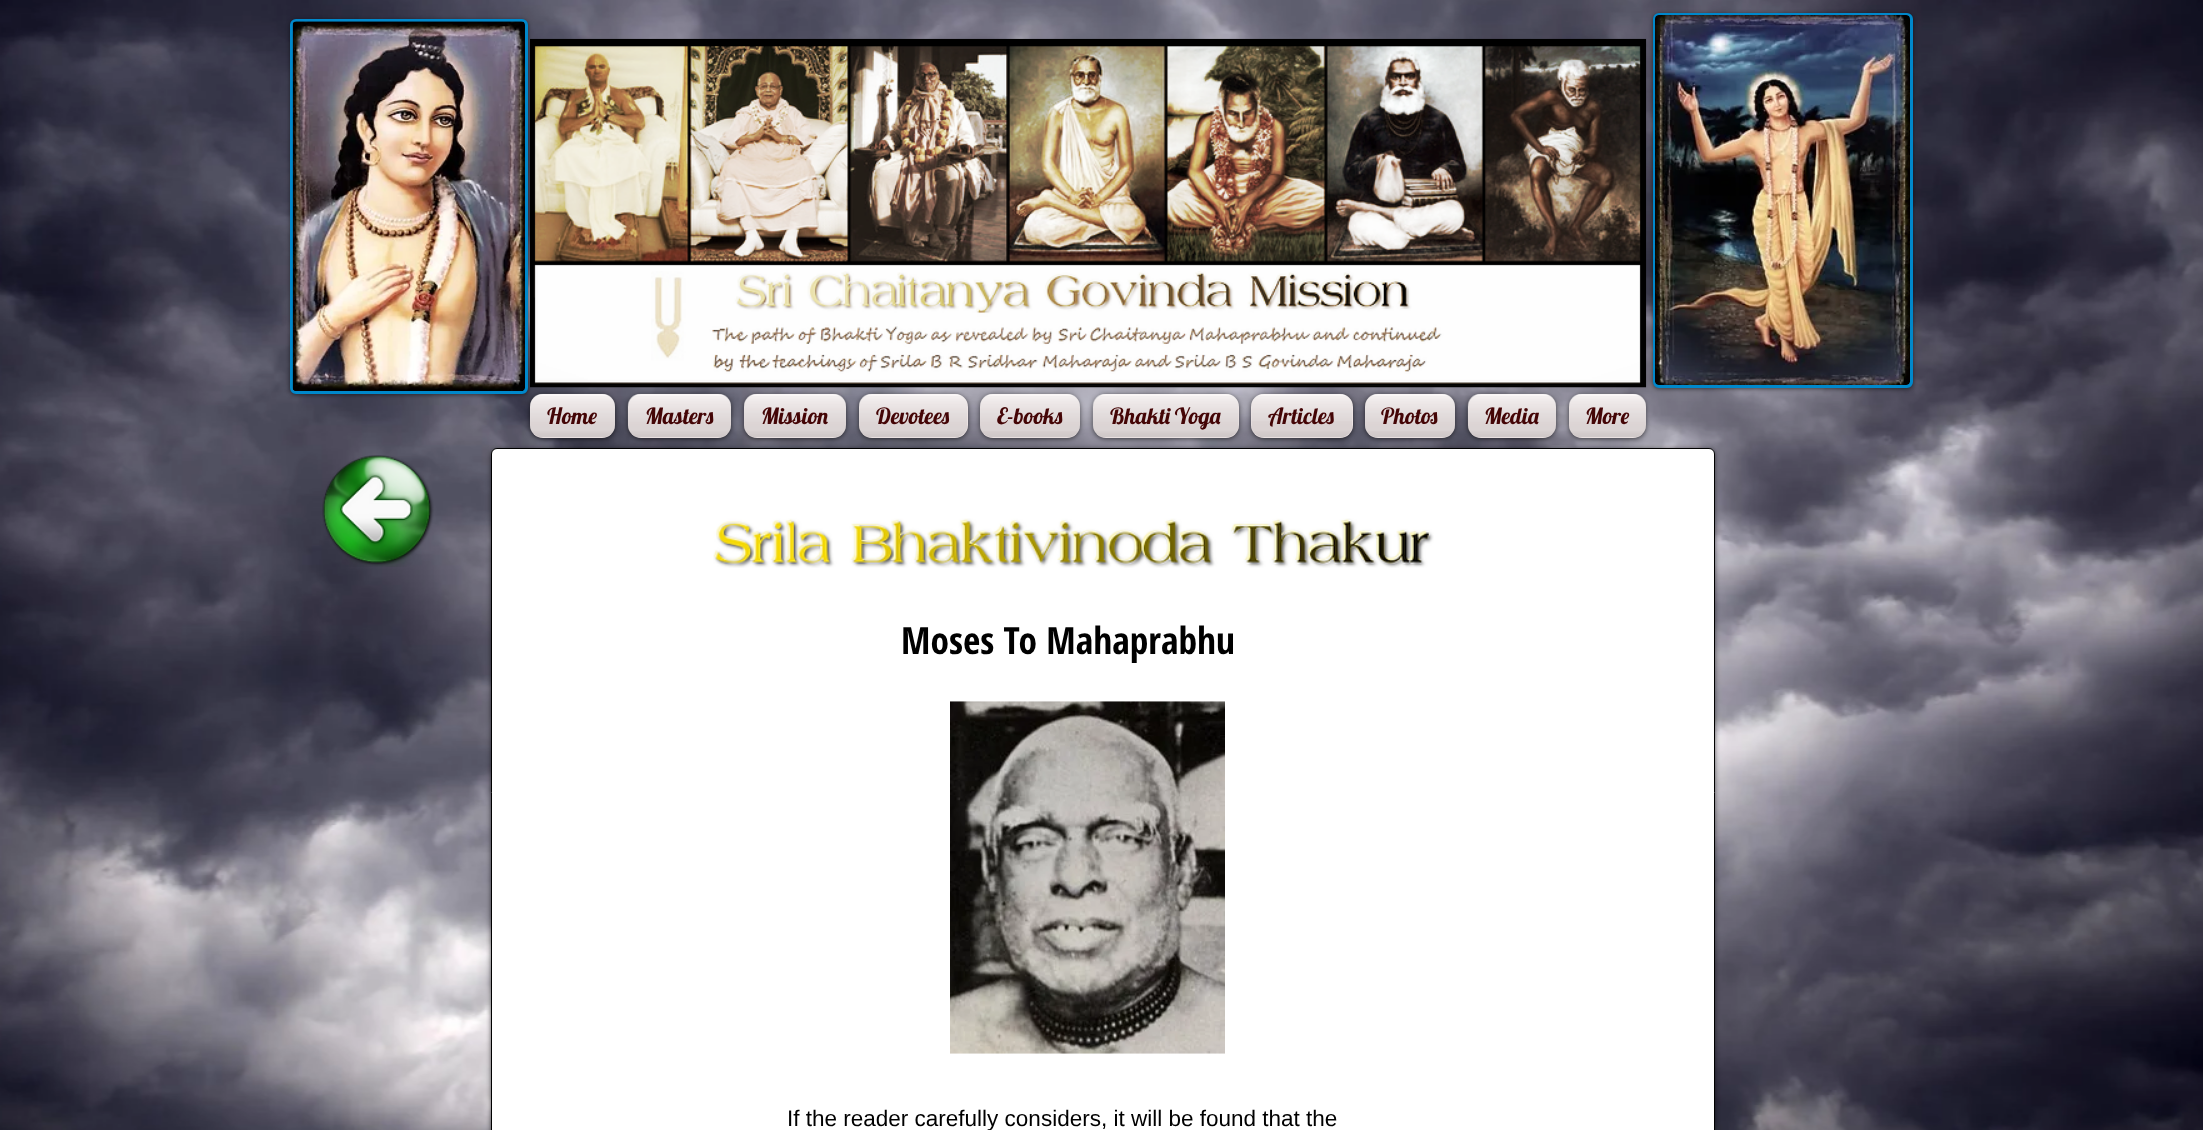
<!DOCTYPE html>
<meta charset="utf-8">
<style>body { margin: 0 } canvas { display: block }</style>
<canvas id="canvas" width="2203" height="1130"></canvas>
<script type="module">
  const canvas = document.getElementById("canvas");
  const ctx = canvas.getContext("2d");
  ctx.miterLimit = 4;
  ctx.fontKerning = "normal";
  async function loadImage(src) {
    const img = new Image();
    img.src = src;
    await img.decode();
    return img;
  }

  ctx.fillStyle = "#ffffff";
  ctx.fillRect(0, 0, 2203, 1130);
  ctx.drawImage(await loadImage("img1.png"), 0, 0, 2203, 1130);
  ctx.fillStyle = "rgba(0, 0, 0, 0.5)";
  ctx.filter = "blur(2px)";
  ctx.beginPath();
  ctx.roundRect(290, 20, 238, 375, 6);
  ctx.fill();
  ctx.filter = "none";
  ctx.fillStyle = "#0088cb";
  ctx.beginPath();
  ctx.roundRect(291.5, 20.5, 235, 372, 4.5);
  ctx.fill();
  ctx.strokeStyle = "#0088cb";
  ctx.lineWidth = 3;
  ctx.stroke();
  ctx.drawImage(await loadImage("img2.png"), 292, 21, 233, 370);
  ctx.drawImage(await loadImage("img3.png"), 530, 38, 1117, 350);
  ctx.fillStyle = "rgba(0, 0, 0, 0.5)";
  ctx.filter = "blur(2px)";
  ctx.beginPath();
  ctx.roundRect(1653, 14, 260, 375, 6);
  ctx.fill();
  ctx.filter = "none";
  ctx.fillStyle = "#0088cb";
  ctx.beginPath();
  ctx.roundRect(1654.5, 14.5, 257, 372, 4.5);
  ctx.fill();
  ctx.stroke();
  ctx.drawImage(await loadImage("img4.png"), 1655, 15, 255, 370);
  ctx.fillStyle = "rgba(0, 0, 0, 0.6)";
  ctx.filter = "blur(2.5px)";
  ctx.beginPath();
  ctx.roundRect(530, 395, 85, 44, 13);
  ctx.fill();
  ctx.filter = "none";
  ctx.fillStyle = "#f2e9e9";
  ctx.beginPath();
  ctx.roundRect(530, 394, 85, 44, 13);
  ctx.fill();
  ctx.drawImage(await loadImage("img5.png"), 530, 393, 85, 40);
  ctx.drawImage(await loadImage("img6.png"), 530, 396, 85, 42);
  ctx.font = "22.5px Lobster";
  ctx.fillStyle = "#440506";
  ctx.fillText("Home", 547, 424);
  ctx.fillStyle = "rgba(0, 0, 0, 0.6)";
  ctx.filter = "blur(2.5px)";
  ctx.beginPath();
  ctx.roundRect(628, 395, 103, 44, 13);
  ctx.fill();
  ctx.filter = "none";
  ctx.fillStyle = "#f2e9e9";
  ctx.beginPath();
  ctx.roundRect(628, 394, 103, 44, 13);
  ctx.fill();
  ctx.drawImage(await loadImage("img7.png"), 627, 393, 105, 42);
  ctx.drawImage(await loadImage("img8.png"), 628, 396, 103, 42);
  ctx.fillStyle = "#440506";
  ctx.fillText("Masters", 645, 424);
  ctx.fillStyle = "rgba(0, 0, 0, 0.6)";
  ctx.filter = "blur(2.5px)";
  ctx.beginPath();
  ctx.roundRect(744, 395, 102, 44, 13);
  ctx.fill();
  ctx.filter = "none";
  ctx.fillStyle = "#f2e9e9";
  ctx.beginPath();
  ctx.roundRect(744, 394, 102, 44, 13);
  ctx.fill();
  ctx.drawImage(await loadImage("img9.png"), 744, 393, 102, 41);
  ctx.drawImage(await loadImage("img10.png"), 744, 396, 102, 42);
  ctx.fillStyle = "#440506";
  ctx.fillText("Mission", 761, 424);
  ctx.fillStyle = "rgba(0, 0, 0, 0.6)";
  ctx.filter = "blur(2.5px)";
  ctx.beginPath();
  ctx.roundRect(859, 395, 109, 44, 13);
  ctx.fill();
  ctx.filter = "none";
  ctx.fillStyle = "#f2e9e9";
  ctx.beginPath();
  ctx.roundRect(859, 394, 109, 44, 13);
  ctx.fill();
  ctx.drawImage(await loadImage("img11.png"), 859, 393, 108, 41);
  ctx.drawImage(await loadImage("img12.png"), 859, 396, 109, 42);
  ctx.fillStyle = "#440506";
  ctx.fillText("Devotees", 876, 424);
  ctx.fillStyle = "rgba(0, 0, 0, 0.6)";
  ctx.filter = "blur(2.5px)";
  ctx.beginPath();
  ctx.roundRect(980, 395, 100, 44, 13);
  ctx.fill();
  ctx.filter = "none";
  ctx.fillStyle = "#f2e9e9";
  ctx.beginPath();
  ctx.roundRect(980, 394, 100, 44, 13);
  ctx.fill();
  ctx.drawImage(await loadImage("img13.png"), 980, 393, 100, 38);
  ctx.drawImage(await loadImage("img14.png"), 980, 396, 100, 42);
  ctx.fillStyle = "#440506";
  ctx.fillText("E-books", 997, 424);
  ctx.fillStyle = "rgba(0, 0, 0, 0.6)";
  ctx.filter = "blur(2.5px)";
  ctx.beginPath();
  ctx.roundRect(1093, 395, 146, 44, 13);
  ctx.fill();
  ctx.filter = "none";
  ctx.fillStyle = "#f2e9e9";
  ctx.beginPath();
  ctx.roundRect(1093, 394, 146, 44, 13);
  ctx.fill();
  ctx.drawImage(await loadImage("img15.png"), 1092, 394, 147, 39);
  ctx.drawImage(await loadImage("img16.png"), 1093, 396, 146, 42);
  ctx.fillStyle = "#440506";
  ctx.fillText("Bhakti Yoga", 1110, 424);
  ctx.fillStyle = "rgba(0, 0, 0, 0.6)";
  ctx.filter = "blur(2.5px)";
  ctx.beginPath();
  ctx.roundRect(1251, 395, 102, 44, 13);
  ctx.fill();
  ctx.filter = "none";
  ctx.fillStyle = "#f2e9e9";
  ctx.beginPath();
  ctx.roundRect(1251, 394, 102, 44, 13);
  ctx.fill();
  ctx.drawImage(await loadImage("img17.png"), 1251, 393, 101, 28);
  ctx.drawImage(await loadImage("img18.png"), 1251, 396, 102, 42);
  ctx.fillStyle = "#440506";
  ctx.fillText("Articles", 1268, 424);
  ctx.fillStyle = "rgba(0, 0, 0, 0.6)";
  ctx.filter = "blur(2.5px)";
  ctx.beginPath();
  ctx.roundRect(1365, 395, 90, 44, 13);
  ctx.fill();
  ctx.filter = "none";
  ctx.fillStyle = "#f2e9e9";
  ctx.beginPath();
  ctx.roundRect(1365, 394, 90, 44, 13);
  ctx.fill();
  ctx.drawImage(await loadImage("img19.png"), 1365, 393, 90, 38);
  ctx.drawImage(await loadImage("img20.png"), 1365, 396, 90, 42);
  ctx.fillStyle = "#440506";
  ctx.fillText("Photos", 1381, 424);
  ctx.fillStyle = "rgba(0, 0, 0, 0.6)";
  ctx.filter = "blur(2.5px)";
  ctx.beginPath();
  ctx.roundRect(1468, 395, 88, 44, 13);
  ctx.fill();
  ctx.filter = "none";
  ctx.fillStyle = "#f2e9e9";
  ctx.beginPath();
  ctx.roundRect(1468, 394, 88, 44, 13);
  ctx.fill();
  ctx.drawImage(await loadImage("img21.png"), 1467, 393, 89, 42);
  ctx.drawImage(await loadImage("img22.png"), 1468, 396, 88, 42);
  ctx.fillStyle = "#440506";
  ctx.fillText("Media", 1484, 424);
  ctx.fillStyle = "rgba(0, 0, 0, 0.6)";
  ctx.filter = "blur(2.5px)";
  ctx.beginPath();
  ctx.roundRect(1569, 395, 77, 44, 13);
  ctx.fill();
  ctx.filter = "none";
  ctx.fillStyle = "#f2e9e9";
  ctx.beginPath();
  ctx.roundRect(1569, 394, 77, 44, 13);
  ctx.fill();
  ctx.drawImage(await loadImage("img23.png"), 1569, 393, 77, 40);
  ctx.drawImage(await loadImage("img24.png"), 1569, 396, 77, 42);
  ctx.fillStyle = "#440506";
  ctx.fillText("More", 1585, 424);
  ctx.drawImage(await loadImage("img25.png"), 322, 455, 112, 112);
  ctx.fillStyle = "rgba(0, 0, 0, 0.6)";
  ctx.filter = "blur(2.5px)";
  ctx.beginPath();
  ctx.roundRect(491, 449, 1224, 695, 6);
  ctx.fill();
  ctx.filter = "none";
  ctx.fillStyle = "#ffffff";
  ctx.beginPath();
  ctx.roundRect(491.5, 448.5, 1223, 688, 5.5);
  ctx.fill();
  ctx.strokeStyle = "#000000";
  ctx.lineWidth = 1;
  ctx.stroke();
  ctx.drawImage(await loadImage("img26.png"), 713, 518, 721, 50);
  ctx.font = "bold 37.5px Open Sans Condensed";
  ctx.fillStyle = "#000000";
  ctx.fillText("Moses To Mahaprabhu", 901, 654);
  ctx.drawImage(await loadImage("img27.png"), 950, 701, 275, 353);
  ctx.font = "22.5px Liberation Sans";
  ctx.fillText("If the reader carefully considers, it will be found that the", 787, 1126);
</script>
